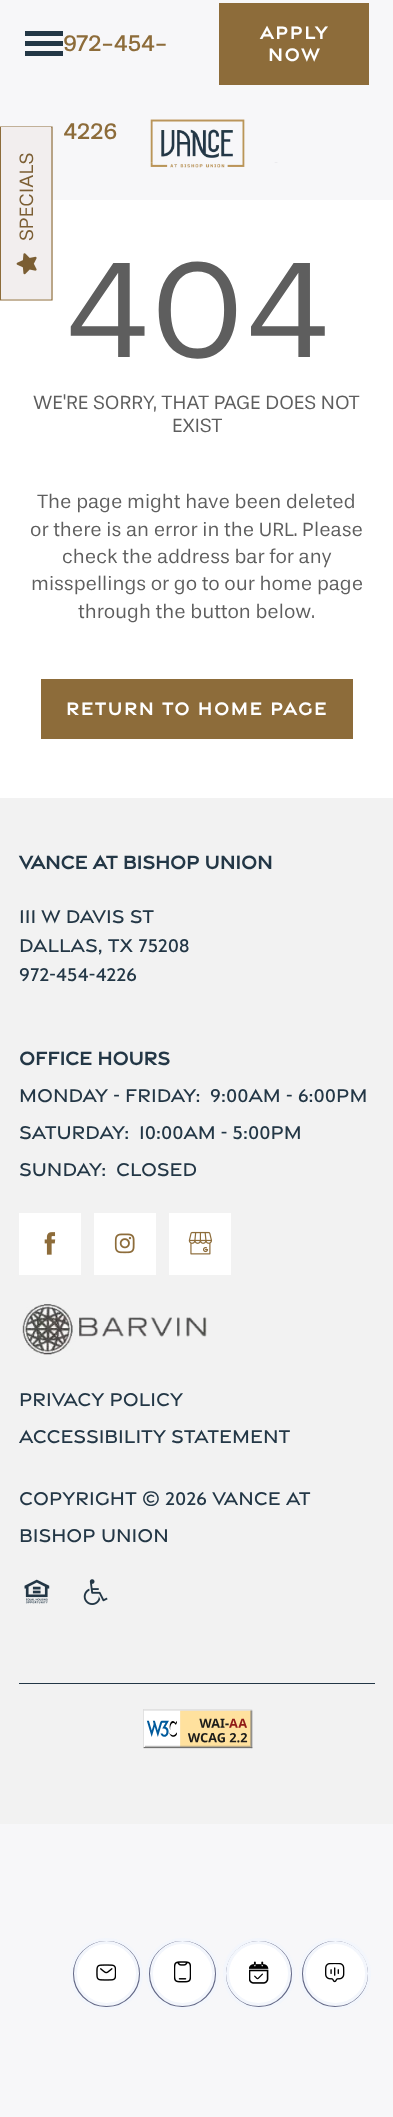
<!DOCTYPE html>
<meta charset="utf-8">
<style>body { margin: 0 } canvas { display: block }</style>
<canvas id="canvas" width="393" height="2117"></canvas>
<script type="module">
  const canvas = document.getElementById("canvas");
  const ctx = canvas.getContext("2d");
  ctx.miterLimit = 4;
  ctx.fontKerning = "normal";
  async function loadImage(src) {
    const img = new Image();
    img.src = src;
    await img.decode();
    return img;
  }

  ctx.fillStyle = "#f7f7f9";
  ctx.fillRect(0, 0, 393, 2117);
  ctx.fillStyle = "#ffffff";
  ctx.fillRect(0, 200, 393, 598);
  ctx.fillStyle = "#233746";
  ctx.fillRect(25, 31, 38, 5);
  ctx.fillRect(25, 41, 38, 5);
  ctx.fillRect(25, 51, 38, 5);
  ctx.font = "bold 22.5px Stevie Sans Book";
  ctx.fillStyle = "#8d6c3a";
  ctx.fillText("972-454-", 63, 51);
  ctx.fillText("4226", 63, 139);
  ctx.fillRect(219, 3, 150, 82);
  ctx.letterSpacing = "1.9px";
  ctx.font = "bold 18.75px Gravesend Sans";
  ctx.fillStyle = "#ffffff";
  ctx.fillText("APPLY", 260, 39);
  ctx.fillText("NOW", 268, 61);
  ctx.drawImage(await loadImage("img1.png"), 150, 119, 128, 49);
  ctx.beginPath();
  ctx.moveTo(0.5, 300);
  ctx.lineTo(0.5, 127);
  ctx.lineTo(52, 127);
  ctx.lineTo(52, 300);
  ctx.closePath();
  ctx.strokeStyle = "#8d6c3a";
  ctx.lineWidth = 1.2;
  ctx.stroke();
  ctx.fillStyle = "#f2eeee";
  ctx.fillRect(1, 127, 50, 172);
  ctx.letterSpacing = "0px";
  ctx.font = "20px Stevie Sans Book";
  ctx.fillStyle = "#7b5e33";
  ctx.save();
  ctx.translate(33, 241);
  ctx.rotate(-90 * Math.PI / 180);
  ctx.fillText("SPECIALS", 0, 0);
  ctx.restore();
  ctx.drawImage(await loadImage("img2.png"), 16, 253, 21, 22);
  ctx.font = "141px Stevie Sans Book";
  ctx.fillStyle = "#5e5e5e";
  ctx.fillText("404", 64, 357);
  ctx.font = "19.9px Stevie Sans Book";
  ctx.fillText("WE'RE SORRY, THAT PAGE DOES NOT", 33, 409);
  ctx.fillText("EXIST", 172, 432);
  ctx.fillText("The page might have been deleted", 37, 508);
  ctx.fillText("or there is an error in the URL. Please", 30, 536);
  ctx.fillText("check the address bar for any", 62, 563);
  ctx.fillText("misspellings or go to our home page", 31, 590);
  ctx.fillText("through the button below.", 78, 618);
  ctx.fillStyle = "#8d6c3a";
  ctx.fillRect(41, 679, 312, 60);
  ctx.letterSpacing = "1.9px";
  ctx.font = "bold 18.75px Gravesend Sans";
  ctx.fillStyle = "#ffffff";
  ctx.fillText("RETURN TO HOME PAGE", 66, 715);
  ctx.fillStyle = "#f2f2f2";
  ctx.fillRect(0, 798, 393, 1026);
  ctx.letterSpacing = "0px";
  ctx.font = "bold 20px Gravesend Sans";
  ctx.fillStyle = "#233746";
  ctx.fillText("Vance at Bishop Union", 19, 869);
  ctx.font = "500 20px Gravesend Sans";
  ctx.fillText("111 W Davis St", 19, 923);
  ctx.fillText("Dallas, TX 75208", 19, 952);
  ctx.fillText("972-454-4226", 19, 981);
  ctx.font = "bold 20px Gravesend Sans";
  ctx.fillText("Office Hours", 19, 1065);
  ctx.font = "500 20px Gravesend Sans";
  ctx.fillText("Monday - Friday:", 19, 1102);
  ctx.fillText("9:00am - 6:00pm", 210, 1102);
  ctx.fillText("Saturday:", 19, 1139);
  ctx.fillText("10:00am - 5:00pm", 139, 1139);
  ctx.fillText("Sunday:", 19, 1176);
  ctx.fillText("Closed", 116, 1176);
  ctx.fillStyle = "#ffffff";
  ctx.fillRect(19, 1213, 62, 62);
  ctx.drawImage(await loadImage("img3.png"), 44, 1232, 12, 23);
  ctx.fillRect(94, 1213, 62, 62);
  ctx.drawImage(await loadImage("img4.png"), 114, 1233, 21, 21);
  ctx.fillRect(169, 1213, 62, 62);
  ctx.drawImage(await loadImage("img5.png"), 188, 1231, 25, 24);
  ctx.drawImage(await loadImage("img6.png"), 22, 1304, 185, 51);
  ctx.fillStyle = "#233746";
  ctx.fillText("Privacy Policy", 19, 1406);
  ctx.fillText("Accessibility Statement", 19, 1443);
  ctx.fillText("Copyright © 2026 Vance at", 19, 1505);
  ctx.fillText("Bishop Union", 19, 1542);
  ctx.drawImage(await loadImage("img7.png"), 24, 1579, 26, 25);
  ctx.drawImage(await loadImage("img8.png"), 83, 1579, 25, 26);
  ctx.fillRect(19, 1683, 356, 1);
  ctx.drawImage(await loadImage("img9.png"), 143, 1709, 110, 40);
  ctx.fillStyle = "#646987";
  ctx.beginPath();
  ctx.roundRect(71.5, 1939.5, 70, 69, 34.5);
  ctx.fill();
  ctx.strokeStyle = "#f3f6fc";
  ctx.lineWidth = 3;
  ctx.stroke();
  ctx.fillStyle = "#ffffff";
  ctx.beginPath();
  ctx.arc(106.5, 1973.5, 31, 0, Math.PI * 2);
  ctx.fill();
  ctx.stroke();
  ctx.drawImage(await loadImage("img10.png"), 96, 1964, 20, 17);
  ctx.fillStyle = "#646987";
  ctx.beginPath();
  ctx.roundRect(147.5, 1939.5, 70, 69, 34.5);
  ctx.fill();
  ctx.stroke();
  ctx.fillStyle = "#ffffff";
  ctx.beginPath();
  ctx.arc(182.5, 1973.5, 31, 0, Math.PI * 2);
  ctx.fill();
  ctx.stroke();
  ctx.drawImage(await loadImage("img11.png"), 174, 1961, 17, 22);
  ctx.fillStyle = "#646987";
  ctx.beginPath();
  ctx.arc(259, 1974, 34.5, 0, Math.PI * 2);
  ctx.fill();
  ctx.stroke();
  ctx.fillStyle = "#ffffff";
  ctx.beginPath();
  ctx.arc(258.5, 1973.5, 31, 0, Math.PI * 2);
  ctx.fill();
  ctx.stroke();
  ctx.drawImage(await loadImage("img12.png"), 249, 1961, 20, 23);
  ctx.fillStyle = "#646987";
  ctx.beginPath();
  ctx.arc(335, 1974, 34.5, 0, Math.PI * 2);
  ctx.fill();
  ctx.stroke();
  ctx.fillStyle = "#ffffff";
  ctx.beginPath();
  ctx.arc(335.5, 1973.5, 31, 0, Math.PI * 2);
  ctx.fill();
  ctx.stroke();
  ctx.drawImage(await loadImage("img13.png"), 325, 1963, 20, 20);
</script>
